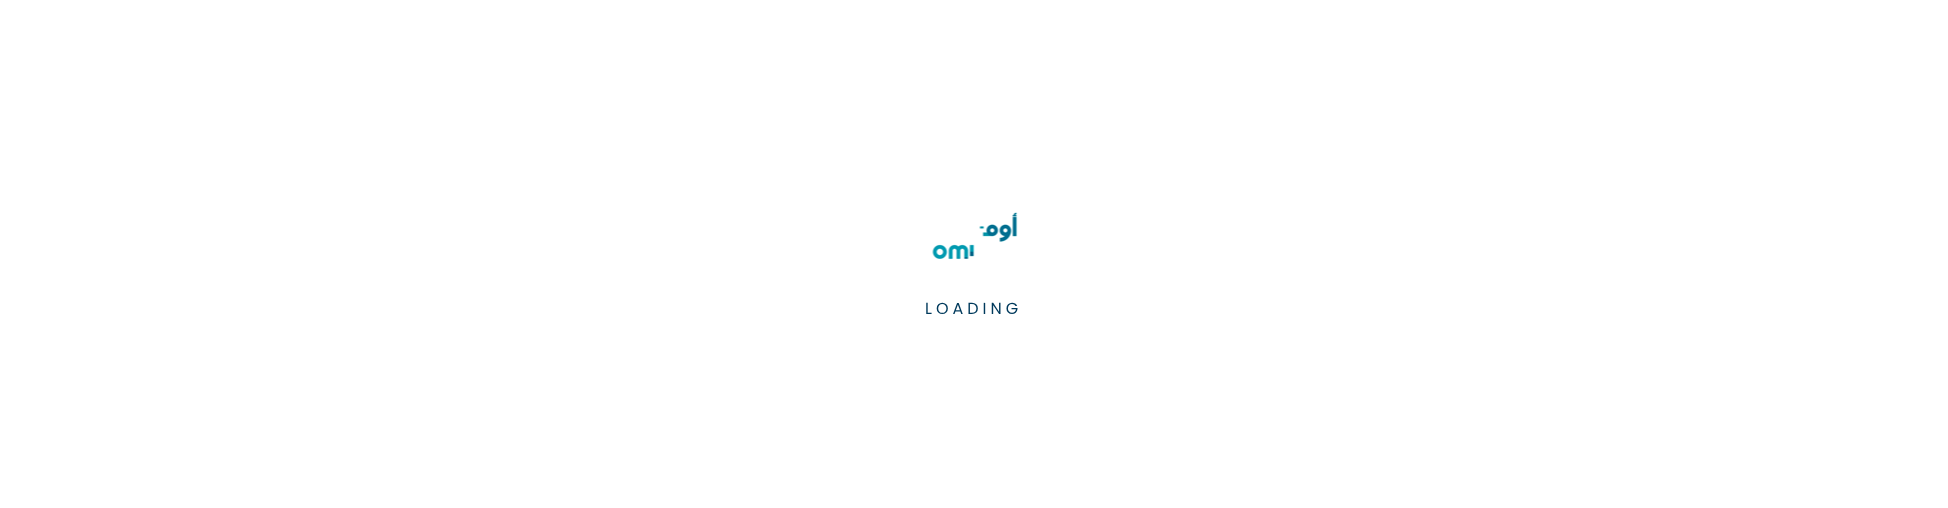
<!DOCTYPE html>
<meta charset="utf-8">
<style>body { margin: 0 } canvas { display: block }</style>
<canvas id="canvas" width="1948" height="508"></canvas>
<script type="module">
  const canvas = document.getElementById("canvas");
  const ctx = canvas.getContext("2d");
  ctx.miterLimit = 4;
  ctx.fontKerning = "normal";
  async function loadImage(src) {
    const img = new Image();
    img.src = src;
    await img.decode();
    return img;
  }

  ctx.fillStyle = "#ffffff";
  ctx.fillRect(0, 0, 1948, 508);
  ctx.drawImage(await loadImage("img1.png"), 932, 212, 86, 48);
  ctx.letterSpacing = "4px";
  ctx.font = "16px Poppins";
  ctx.fillStyle = "#003a5c";
  ctx.fillText("LOADING", 925, 314);
</script>
